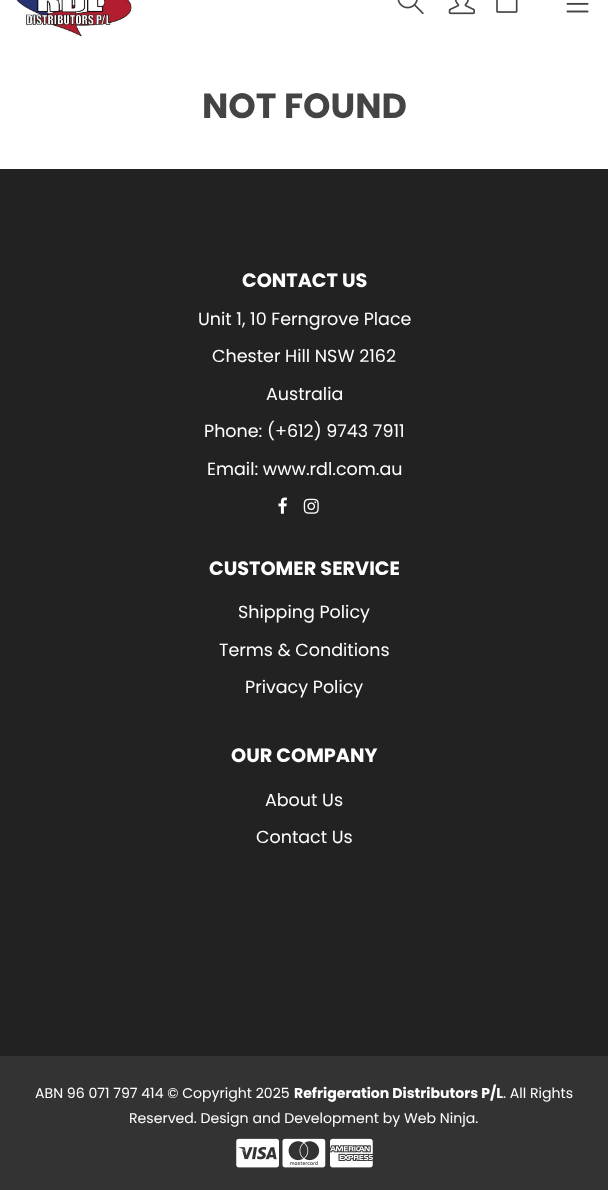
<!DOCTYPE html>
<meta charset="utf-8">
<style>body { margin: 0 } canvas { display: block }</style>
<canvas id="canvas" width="608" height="1190"></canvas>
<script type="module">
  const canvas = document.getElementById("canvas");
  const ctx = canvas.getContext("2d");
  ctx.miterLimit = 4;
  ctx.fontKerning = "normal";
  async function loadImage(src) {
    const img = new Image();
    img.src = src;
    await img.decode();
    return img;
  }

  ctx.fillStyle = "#ffffff";
  ctx.fillRect(0, 0, 608, 1190);
  ctx.drawImage(await loadImage("img1.png"), 16, 0, 116, 37);
  ctx.drawImage(await loadImage("img2.png"), 397, 0, 27, 15);
  ctx.drawImage(await loadImage("img3.png"), 448, 0, 27, 15);
  ctx.drawImage(await loadImage("img4.png"), 496, 0, 22, 13);
  ctx.drawImage(await loadImage("img5.png"), 566, 2, 23, 11);
  ctx.font = "bold 35px Poppins";
  ctx.fillStyle = "#444444";
  ctx.fillText("NOT FOUND", 202, 118);
  ctx.fillStyle = "#222222";
  ctx.fillRect(0, 169, 608, 887);
  ctx.font = "bold 19.25px Poppins";
  ctx.fillStyle = "#ffffff";
  ctx.fillText("CONTACT US", 242, 287);
  ctx.font = "17.5px Poppins";
  ctx.fillText("Unit 1, 10 Ferngrove Place", 198, 325);
  ctx.fillText("Chester Hill NSW 2162", 212, 362);
  ctx.fillText("Australia", 266, 400);
  ctx.fillText("Phone: (+612) 9743 7911", 204, 437);
  ctx.fillText("Email: www.rdl.com.au", 207, 475);
  ctx.drawImage(await loadImage("img6.png"), 278, 497, 9, 17);
  ctx.drawImage(await loadImage("img7.png"), 303, 498, 16, 16);
  ctx.font = "bold 19.25px Poppins";
  ctx.fillText("CUSTOMER SERVICE", 209, 575);
  ctx.font = "17.5px Poppins";
  ctx.fillText("Shipping Policy", 238, 618);
  ctx.fillText("Terms & Conditions", 219, 656);
  ctx.fillText("Privacy Policy", 245, 693);
  ctx.font = "bold 19.25px Poppins";
  ctx.fillText("OUR COMPANY", 231, 762);
  ctx.font = "17.5px Poppins";
  ctx.fillText("About Us", 265, 806);
  ctx.fillText("Contact Us", 256, 843);
  ctx.fillStyle = "#333333";
  ctx.fillRect(0, 1056, 608, 134);
  ctx.font = "14.1px Poppins";
  ctx.fillStyle = "#ffffff";
  ctx.fillText("ABN 96 071 797 414 © Copyright 2025", 35, 1098);
  ctx.font = "bold 14.1px Poppins";
  ctx.fillText("Refrigeration Distributors P/L", 294, 1098);
  ctx.font = "14.1px Poppins";
  ctx.fillText(". All Rights", 503, 1098);
  ctx.fillText("Reserved. Design and Development by Web Ninja.", 129, 1123);
  ctx.drawImage(await loadImage("img8.png"), 236, 1138, 43, 30);
  ctx.drawImage(await loadImage("img9.png"), 282, 1138, 44, 30);
  ctx.drawImage(await loadImage("img10.png"), 330, 1138, 43, 30);
</script>
